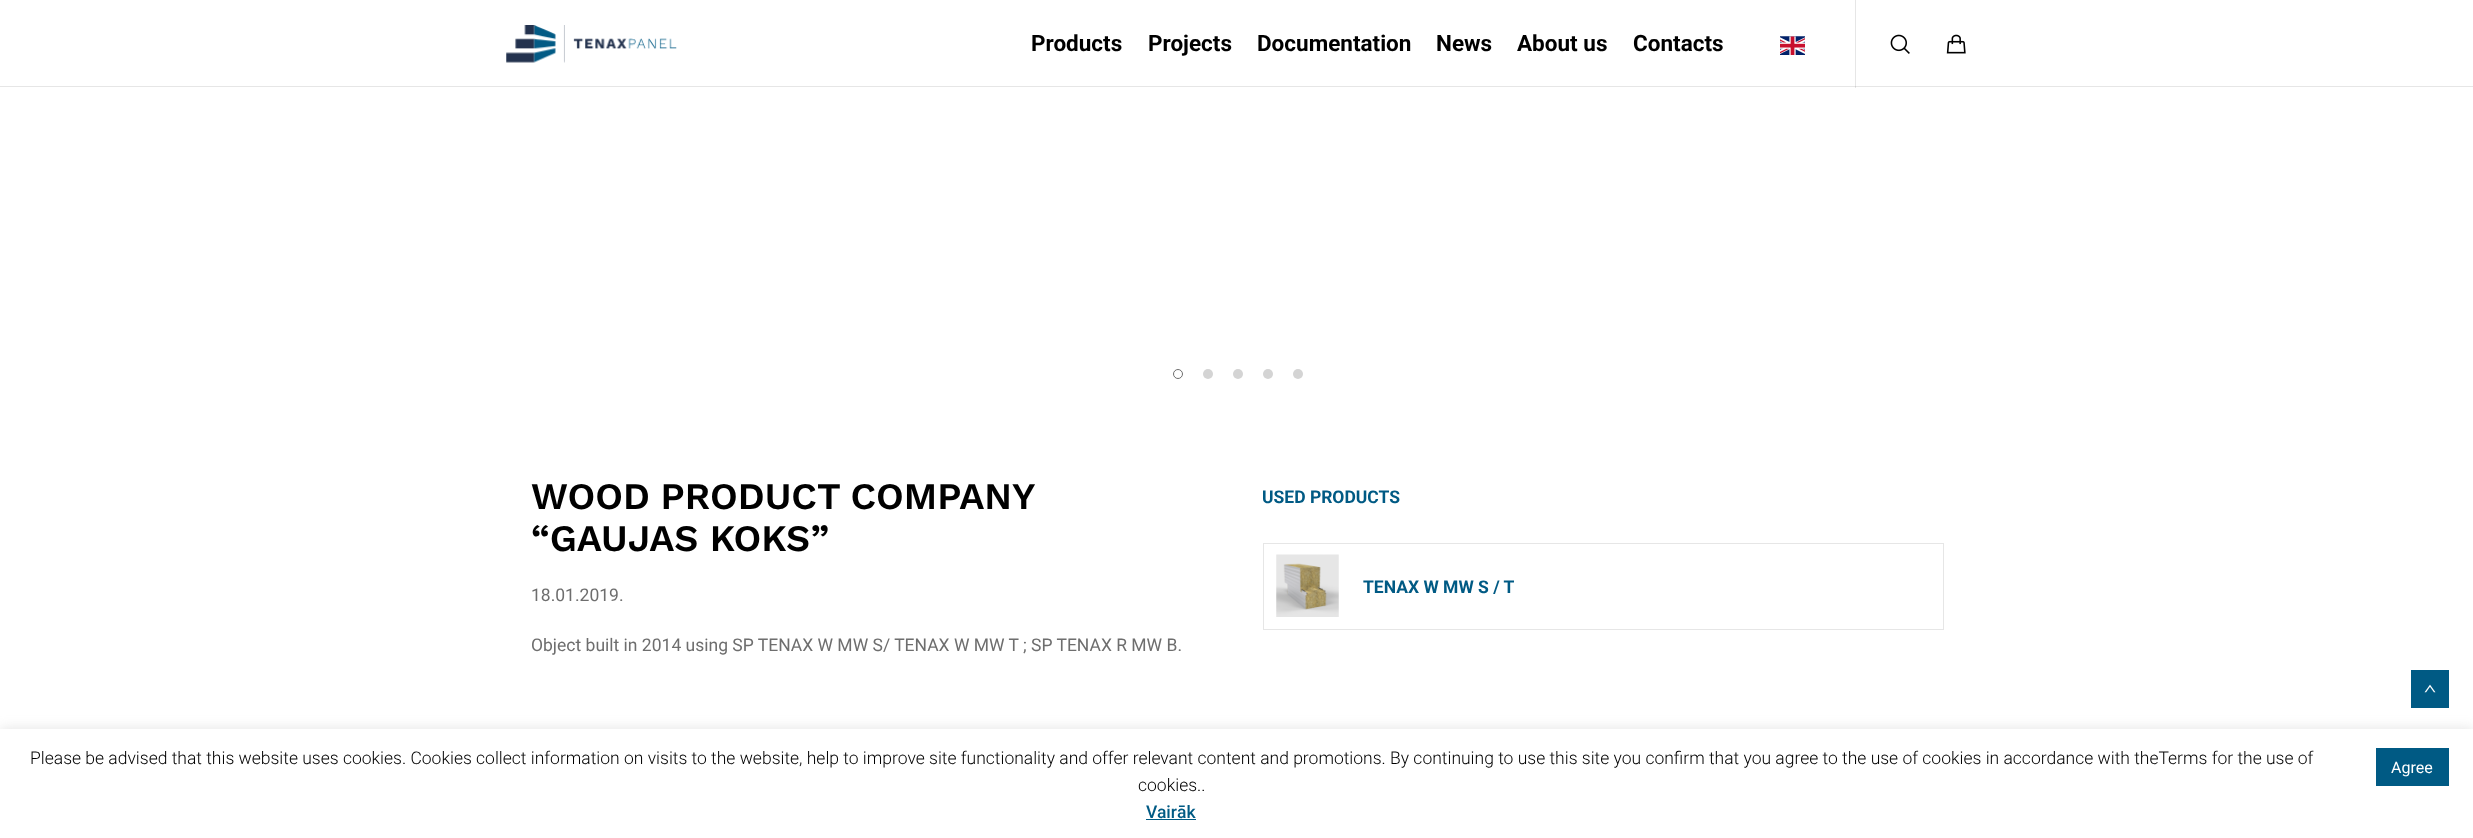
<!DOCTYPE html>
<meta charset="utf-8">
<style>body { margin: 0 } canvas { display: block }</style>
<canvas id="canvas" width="2473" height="838"></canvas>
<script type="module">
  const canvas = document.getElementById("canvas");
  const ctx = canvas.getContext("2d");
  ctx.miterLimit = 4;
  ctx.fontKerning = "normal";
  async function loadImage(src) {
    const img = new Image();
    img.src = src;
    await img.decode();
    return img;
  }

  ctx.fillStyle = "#ffffff";
  ctx.fillRect(0, 0, 2473, 838);
  ctx.fillStyle = "#e6e6e6";
  ctx.fillRect(1855, 0, 1, 88);
  ctx.fillRect(0, 86, 2473, 1);
  ctx.fillStyle = "#cfcfcf";
  ctx.fillRect(1855, 86, 1, 1);
  ctx.drawImage(await loadImage("img1.png"), 506, 25, 171, 38);
  ctx.font = "bold 22.5px Roboto";
  ctx.fillStyle = "#000000";
  ctx.fillText("Products", 1031, 51);
  ctx.fillText("Projects", 1148, 51);
  ctx.fillText("Documentation", 1257, 51);
  ctx.fillText("News", 1436, 51);
  ctx.fillText("About us", 1517, 51);
  ctx.fillText("Contacts", 1633, 51);
  ctx.drawImage(await loadImage("img2.png"), 1780, 36, 25, 19);
  ctx.drawImage(await loadImage("img3.png"), 1890, 34, 20, 20);
  ctx.drawImage(await loadImage("img4.png"), 1946, 34, 20, 20);
  ctx.beginPath();
  ctx.arc(1178, 374, 4.5, 0, Math.PI * 2);
  ctx.strokeStyle = "#6e6e6e";
  ctx.stroke();
  ctx.fillStyle = "#d4d4d4";
  ctx.beginPath();
  ctx.arc(1208, 374, 5, 0, Math.PI * 2);
  ctx.fill();
  ctx.beginPath();
  ctx.arc(1238, 374, 5, 0, Math.PI * 2);
  ctx.fill();
  ctx.beginPath();
  ctx.arc(1268, 374, 5, 0, Math.PI * 2);
  ctx.fill();
  ctx.beginPath();
  ctx.arc(1298, 374, 5, 0, Math.PI * 2);
  ctx.fill();
  ctx.wordSpacing = "-1px";
  ctx.font = "600 37.5px Work Sans";
  ctx.fillStyle = "#000000";
  ctx.fillText("WOOD PRODUCT COMPANY", 531, 509);
  ctx.wordSpacing = "0px";
  ctx.fillText("“GAUJAS KOKS”", 531, 551);
  ctx.font = "17.5px Roboto";
  ctx.fillStyle = "#6e6e6e";
  ctx.fillText("18.01.2019.", 531, 601);
  ctx.fillText("Object built in 2014 using SP TENAX W MW S/ TENAX W MW T ; SP TENAX R MW B.", 531, 651);
  ctx.font = "bold 17.5px Roboto";
  ctx.fillStyle = "#005a84";
  ctx.fillText("USED PRODUCTS", 1262, 503);
  ctx.strokeStyle = "#e6e6e6";
  ctx.strokeRect(1263.5, 543.5, 680, 86);
  ctx.drawImage(await loadImage("img5.png"), 1276, 554, 63, 63);
  ctx.fillText("TENAX W MW S / T", 1363, 593);
  ctx.fillRect(2411, 670, 38, 38);
  ctx.drawImage(await loadImage("img6.png"), 2424, 684, 12, 9);
  ctx.fillStyle = "rgba(172, 171, 171, 0.3)";
  ctx.filter = "blur(6px)";
  ctx.beginPath();
  ctx.rect(0, 728, 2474, 110);
  ctx.fill();
  ctx.filter = "none";
  ctx.fillStyle = "#ffffff";
  ctx.fillRect(0, 729, 2473, 109);
  ctx.font = "300 17.5px Roboto";
  ctx.fillStyle = "#000000";
  ctx.fillText("Please be advised that this website uses cookies. Cookies collect information on visits to the website, help to improve site functionality and offer relevant content and promotions. By continuing to use this site you confirm that you agree to the use of cookies in accordance with theTerms for the use of", 30, 764);
  ctx.fillStyle = "#005a84";
  ctx.fillRect(2376, 748, 73, 38);
  ctx.font = "16px Roboto";
  ctx.fillStyle = "#ffffff";
  ctx.fillText("Agree", 2391, 773);
  ctx.font = "300 17.5px Roboto";
  ctx.fillStyle = "#000000";
  ctx.fillText("cookies..", 1138, 791);
  ctx.font = "500 17.5px Roboto";
  ctx.fillStyle = "#005a84";
  ctx.fillText("Vairāk", 1146, 818);
  ctx.fillRect(1146, 819, 50, 1);
</script>
